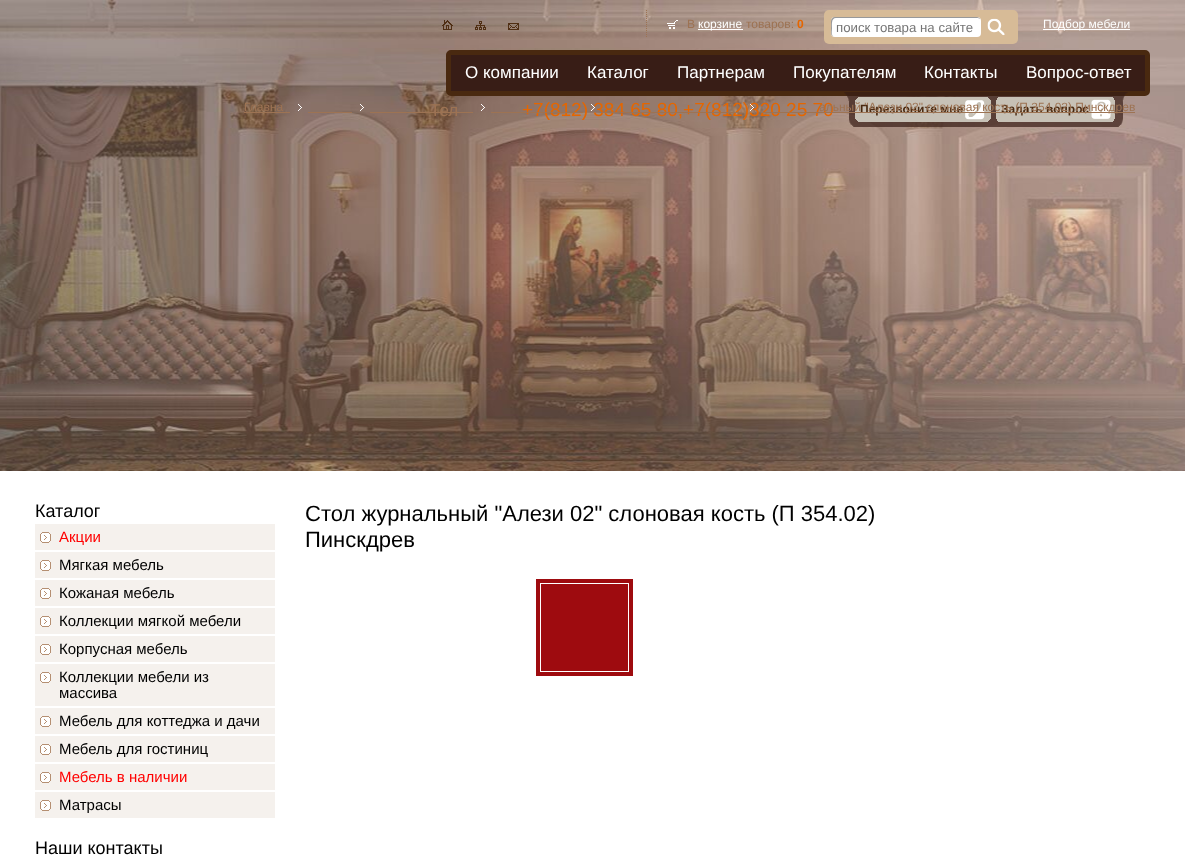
<!DOCTYPE html>
<meta charset="utf-8">
<style>body { margin: 0 } canvas { display: block }</style>
<canvas id="canvas" width="1185" height="868"></canvas>
<script type="module">
  const canvas = document.getElementById("canvas");
  const ctx = canvas.getContext("2d");
  ctx.miterLimit = 4;
  ctx.fontKerning = "normal";
  async function loadImage(src) {
    const img = new Image();
    img.src = src;
    await img.decode();
    return img;
  }

  ctx.fillStyle = "#ffffff";
  ctx.fillRect(0, 0, 1185, 868);
  ctx.drawImage(await loadImage("img1.png"), 0, 0, 1185, 471);
  ctx.drawImage(await loadImage("img2.png"), 442, 20, 11, 10);
  ctx.drawImage(await loadImage("img3.png"), 475, 21, 11, 9);
  ctx.drawImage(await loadImage("img4.png"), 508, 23, 11, 7);
  ctx.drawImage(await loadImage("img5.png"), 667, 20, 11, 9);
  ctx.beginPath();
  ctx.moveTo(646.5, 10);
  ctx.lineTo(646.5, 38);
  ctx.strokeStyle = "#9d7353";
  ctx.setLineDash([1, 1]);
  ctx.stroke();
  ctx.font = "12px Liberation Sans";
  ctx.fillStyle = "#9d7353";
  ctx.fillText("В", 687, 28);
  ctx.fillStyle = "#ffffff";
  ctx.fillRect(698, 29, 45, 1);
  ctx.fillText("корзине", 698, 28);
  ctx.fillStyle = "#9d7353";
  ctx.fillText("товаров:", 746, 28);
  ctx.font = "bold 12px Liberation Sans";
  ctx.fillStyle = "#e56600";
  ctx.fillText("0", 797, 28);
  ctx.fillStyle = "#d7bb97";
  ctx.beginPath();
  ctx.roundRect(824, 10, 194, 34, 5);
  ctx.fill();
  ctx.fillStyle = "#ffffff";
  ctx.beginPath();
  ctx.roundRect(831, 17, 150, 20, 4);
  ctx.fill();
  ctx.fillStyle = "rgba(0, 0, 0, 0.4)";
  ctx.beginPath();
  ctx.moveTo(836, 18);
  ctx.lineTo(978, 18);
  ctx.lineTo(980, 19);
  ctx.bezierCurveTo(980, 18, 978, 17, 977, 17);
  ctx.lineTo(835, 17);
  ctx.bezierCurveTo(833, 17, 831, 19, 831, 21);
  ctx.lineTo(831, 33);
  ctx.bezierCurveTo(831, 34, 832, 36, 833, 36);
  ctx.bezierCurveTo(831, 34, 832, 31, 832, 28);
  ctx.bezierCurveTo(832, 25, 831, 18, 836, 18);
  ctx.closePath();
  ctx.fill();
  ctx.font = "13.25px Liberation Sans";
  ctx.fillStyle = "#757575";
  ctx.fillText("поиск товара на сайте", 836, 32);
  ctx.drawImage(await loadImage("img6.png"), 987, 18, 18, 18);
  ctx.fillStyle = "#ffffff";
  ctx.fillRect(1043, 29, 87, 1);
  ctx.font = "12px Liberation Sans";
  ctx.fillText("Подбор мебели", 1043, 28);
  ctx.fillStyle = "#381d16";
  ctx.beginPath();
  ctx.roundRect(448.5, 52.5, 699, 41, 2.5);
  ctx.fill();
  ctx.strokeStyle = "#492910";
  ctx.lineWidth = 5;
  ctx.setLineDash([]);
  ctx.stroke();
  ctx.font = "17px Liberation Sans";
  ctx.fillStyle = "#ffffff";
  ctx.fillText("О компании", 465, 78);
  ctx.fillText("Каталог", 587, 78);
  ctx.fillText("Партнерам", 677, 78);
  ctx.fillText("Покупателям", 793, 78);
  ctx.fillText("Контакты", 924, 78);
  ctx.fillText("Вопрос-ответ", 1026, 78);
  ctx.font = "12px Liberation Sans";
  ctx.fillStyle = "#9d7353";
  ctx.fillText("Главна", 244, 111);
  ctx.fillRect(244, 112, 46, 1);
  ctx.drawImage(await loadImage("img7.png"), 298, 104, 4, 7);
  ctx.drawImage(await loadImage("img8.png"), 360, 104, 4, 7);
  ctx.drawImage(await loadImage("img9.png"), 481, 104, 4, 7);
  ctx.font = "19px Liberation Sans";
  ctx.fillStyle = "#e56600";
  ctx.fillText("+7(812) 384 65 80,+7(812)320 25 70", 522, 116);
  ctx.drawImage(await loadImage("img10.png"), 591, 104, 4, 7);
  ctx.drawImage(await loadImage("img11.png"), 750, 104, 4, 7);
  ctx.drawImage(await loadImage("img12.png"), 844, 92, 284, 35);
  ctx.drawImage(await loadImage("img13.png"), 855, 97, 136, 25);
  ctx.font = "bold 12px Liberation Sans";
  ctx.fillStyle = "#492910";
  ctx.fillText("Перезвоните мне", 860, 113);
  ctx.drawImage(await loadImage("img14.png"), 996, 97, 119, 25);
  ctx.fillText("Задать вопрос", 1001, 113);
  ctx.fillStyle = "#9d7353";
  ctx.fillRect(761, 112, 374, 1);
  ctx.font = "12px Liberation Sans";
  ctx.fillText("альный \"Алези 02\" слоновая кость (П 354.02) Пинскдрев", 819, 111);
  ctx.fillRect(308, 112, 44, 1);
  ctx.fillRect(370, 112, 103, 1);
  ctx.fillRect(491, 112, 92, 1);
  ctx.fillRect(601, 112, 141, 1);
  ctx.font = "17px Liberation Sans";
  ctx.fillText("Тел", 430, 116);
  ctx.font = "18px Liberation Sans";
  ctx.fillStyle = "#000000";
  ctx.fillText("Каталог", 35, 517);
  ctx.fillStyle = "#f5f1ed";
  ctx.fillRect(35, 524, 240, 26);
  ctx.drawImage(await loadImage("img15.png"), 40, 532, 11, 11);
  ctx.font = "15px Liberation Sans";
  ctx.fillStyle = "#ff0000";
  ctx.fillText("Акции", 59, 542);
  ctx.fillStyle = "#f5f1ed";
  ctx.fillRect(35, 552, 240, 26);
  ctx.drawImage(await loadImage("img15.png"), 40, 560, 11, 11);
  ctx.fillStyle = "#000000";
  ctx.fillText("Мягкая мебель", 59, 570);
  ctx.fillStyle = "#f5f1ed";
  ctx.fillRect(35, 580, 240, 26);
  ctx.drawImage(await loadImage("img15.png"), 40, 588, 11, 11);
  ctx.fillStyle = "#000000";
  ctx.fillText("Кожаная мебель", 59, 598);
  ctx.fillStyle = "#f5f1ed";
  ctx.fillRect(35, 608, 240, 26);
  ctx.drawImage(await loadImage("img15.png"), 40, 616, 11, 11);
  ctx.fillStyle = "#000000";
  ctx.fillText("Коллекции мягкой мебели", 59, 626);
  ctx.fillStyle = "#f5f1ed";
  ctx.fillRect(35, 636, 240, 26);
  ctx.drawImage(await loadImage("img15.png"), 40, 644, 11, 11);
  ctx.fillStyle = "#000000";
  ctx.fillText("Корпусная мебель", 59, 654);
  ctx.fillStyle = "#f5f1ed";
  ctx.fillRect(35, 664, 240, 42);
  ctx.drawImage(await loadImage("img15.png"), 40, 672, 11, 11);
  ctx.fillStyle = "#000000";
  ctx.fillText("Коллекции мебели из", 59, 682);
  ctx.fillText("массива", 59, 698);
  ctx.fillStyle = "#f5f1ed";
  ctx.fillRect(35, 708, 240, 26);
  ctx.drawImage(await loadImage("img15.png"), 40, 716, 11, 11);
  ctx.fillStyle = "#000000";
  ctx.fillText("Мебель для коттеджа и дачи", 59, 726);
  ctx.fillStyle = "#f5f1ed";
  ctx.fillRect(35, 736, 240, 26);
  ctx.drawImage(await loadImage("img15.png"), 40, 744, 11, 11);
  ctx.fillStyle = "#000000";
  ctx.fillText("Мебель для гостиниц", 59, 754);
  ctx.fillStyle = "#f5f1ed";
  ctx.fillRect(35, 764, 240, 26);
  ctx.drawImage(await loadImage("img15.png"), 40, 772, 11, 11);
  ctx.fillStyle = "#ff0000";
  ctx.fillText("Мебель в наличии", 59, 782);
  ctx.fillStyle = "#f5f1ed";
  ctx.fillRect(35, 792, 240, 26);
  ctx.drawImage(await loadImage("img15.png"), 40, 800, 11, 11);
  ctx.fillStyle = "#000000";
  ctx.fillText("Матрасы", 59, 810);
  ctx.font = "18px Liberation Sans";
  ctx.fillText("Наши контакты", 35, 854);
  ctx.font = "22px Liberation Sans";
  ctx.fillText("Стол журнальный \"Алези 02\" слоновая кость (П 354.02)", 305, 521);
  ctx.fillText("Пинскдрев", 305, 547);
  ctx.fillStyle = "#9e0b0f";
  ctx.fillRect(536, 579, 97, 97);
  ctx.strokeStyle = "#ffffff";
  ctx.lineWidth = 1;
  ctx.strokeRect(540.5, 583.5, 88, 88);
</script>
